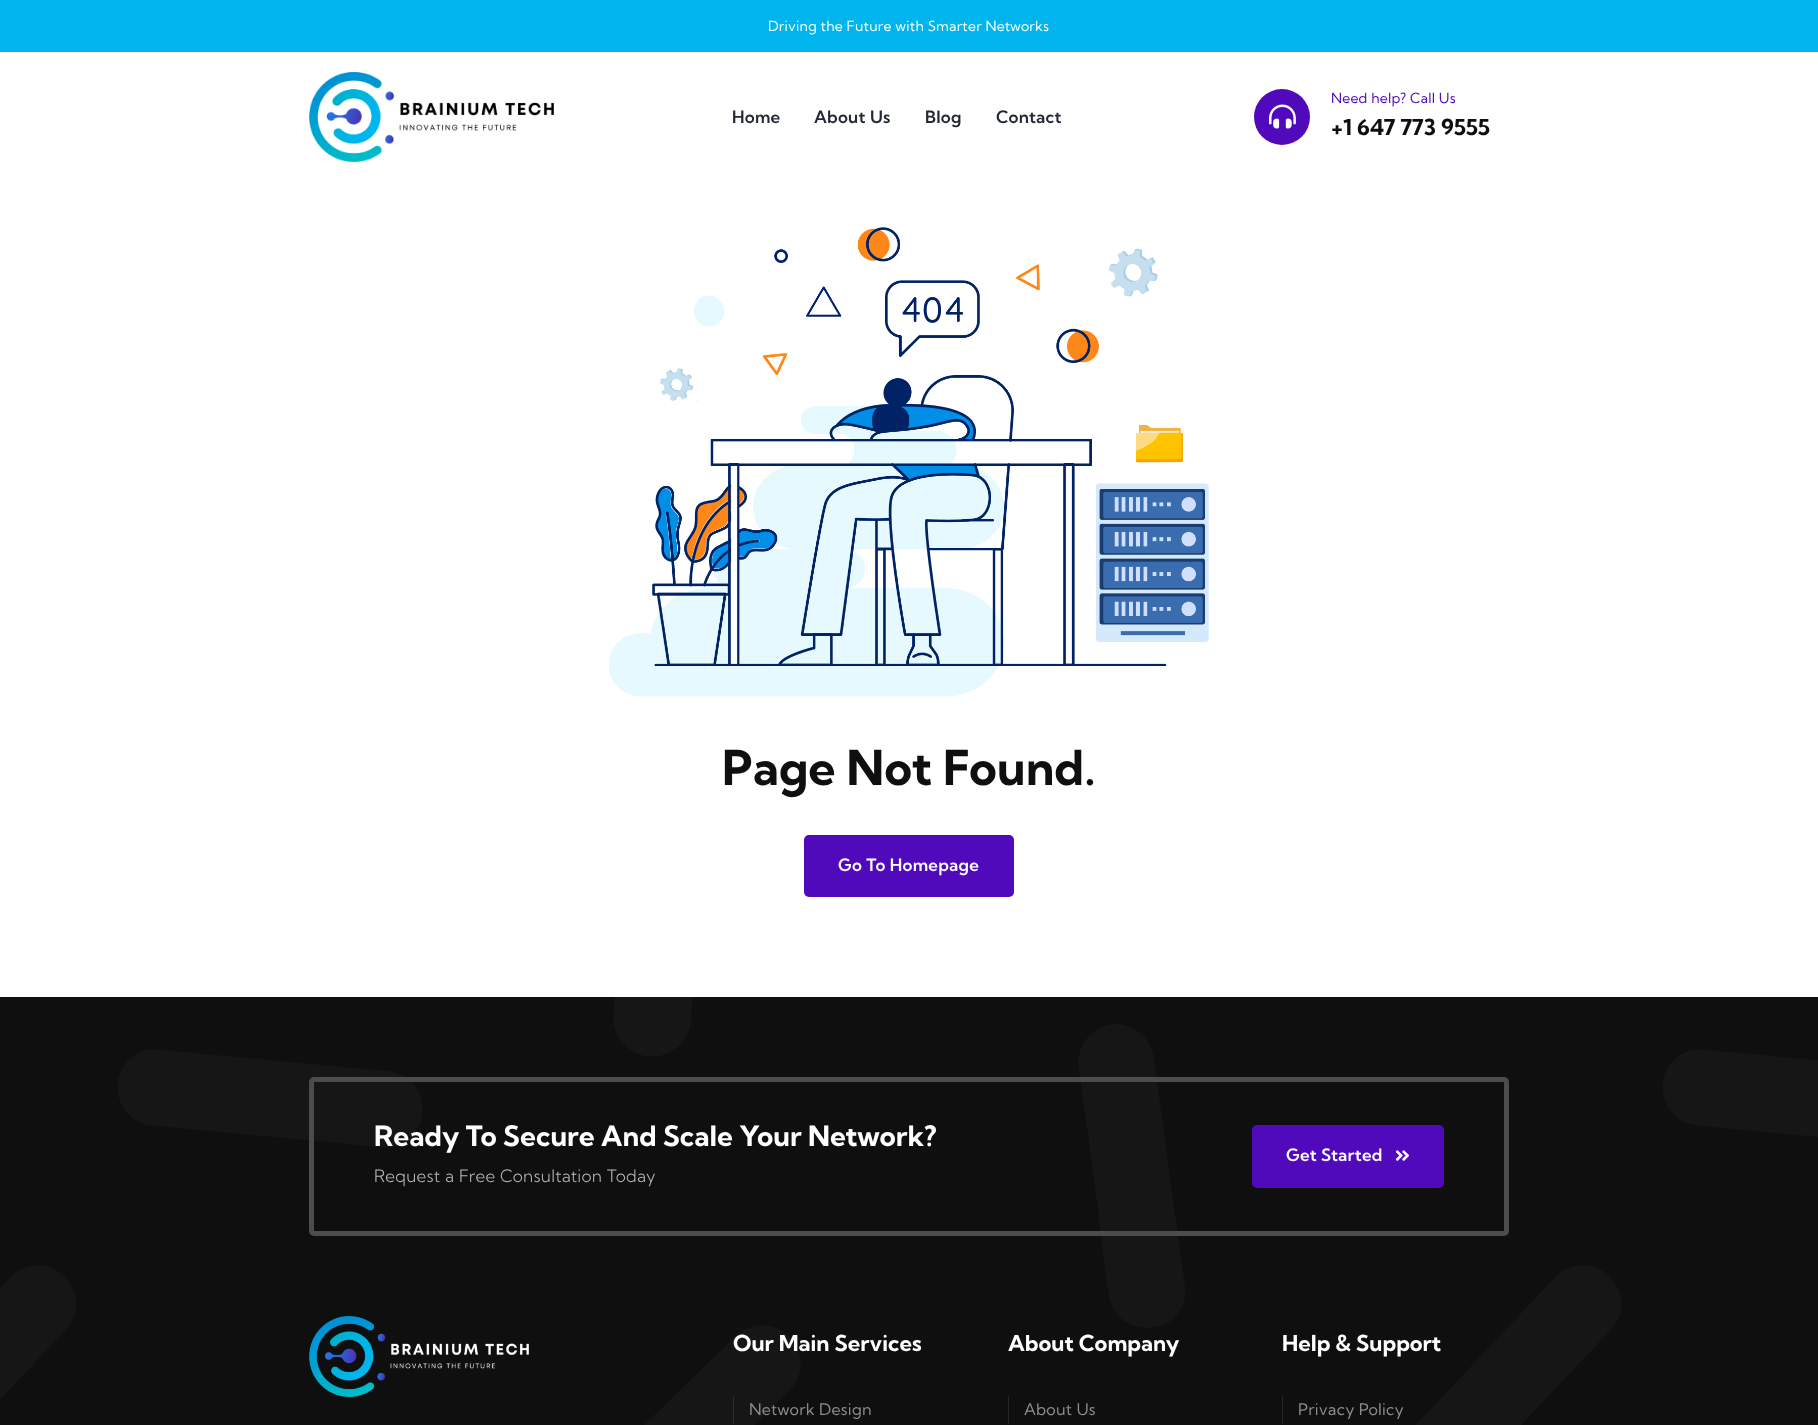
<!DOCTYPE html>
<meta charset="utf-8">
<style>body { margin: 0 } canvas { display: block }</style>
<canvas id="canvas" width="1818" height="1425"></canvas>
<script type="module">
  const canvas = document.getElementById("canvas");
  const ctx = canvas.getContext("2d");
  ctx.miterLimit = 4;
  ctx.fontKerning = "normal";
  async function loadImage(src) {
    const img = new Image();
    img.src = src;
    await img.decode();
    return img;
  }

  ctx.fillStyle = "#ffffff";
  ctx.fillRect(0, 0, 1818, 1425);
  ctx.fillStyle = "#00b5ed";
  ctx.fillRect(0, 0, 1818, 52);
  ctx.letterSpacing = "0.2px";
  ctx.font = "14px Kumbh Sans";
  ctx.fillStyle = "#ffffff";
  ctx.fillText("Driving the Future with Smarter Networks", 768, 31);
  ctx.drawImage(await loadImage("img1.png"), 309, 72, 245, 90);
  ctx.letterSpacing = "0.25px";
  ctx.font = "600 17px Kumbh Sans";
  ctx.fillStyle = "#212934";
  ctx.fillText("Home", 732, 123);
  ctx.fillText("About Us", 814, 123);
  ctx.fillText("Blog", 925, 123);
  ctx.fillText("Contact", 996, 123);
  ctx.fillStyle = "#5109bc";
  ctx.beginPath();
  ctx.arc(1282, 117, 28, 0, Math.PI * 2);
  ctx.fill();
  ctx.drawImage(await loadImage("img2.png"), 1269, 104, 27, 25);
  ctx.letterSpacing = "0.2px";
  ctx.font = "14px Kumbh Sans";
  ctx.fillText("Need help? Call Us", 1331, 103);
  ctx.letterSpacing = "0px";
  ctx.font = "bold 22px Kumbh Sans";
  ctx.fillStyle = "#0f0f0f";
  ctx.fillText("+1 647 773 9555", 1331, 135);
  ctx.drawImage(await loadImage("img3.png"), 609, 227, 600, 470);
  ctx.font = "bold 48px Kumbh Sans";
  ctx.fillText("Page Not Found.", 722, 785);
  ctx.fillStyle = "#5109bc";
  ctx.beginPath();
  ctx.roundRect(804, 835, 210, 62, 5);
  ctx.fill();
  ctx.letterSpacing = "0.25px";
  ctx.font = "600 17px Kumbh Sans";
  ctx.fillStyle = "#ffffff";
  ctx.fillText("Go To Homepage", 838, 871);
  ctx.fillStyle = "#0f0f0f";
  ctx.fillRect(0, 997, 1818, 428);
  ctx.drawImage(await loadImage("img4.png"), 0, 997, 1818, 428);
  ctx.beginPath();
  ctx.roundRect(311.5, 1079.5, 1195, 154, 2.5);
  ctx.strokeStyle = "#4c4c4c";
  ctx.lineWidth = 5;
  ctx.stroke();
  ctx.letterSpacing = "0px";
  ctx.font = "bold 28px Kumbh Sans";
  ctx.fillStyle = "#ffffff";
  ctx.fillText("Ready To Secure And Scale Your Network?", 374, 1146);
  ctx.letterSpacing = "0.25px";
  ctx.font = "300 17px Kumbh Sans";
  ctx.fillStyle = "#b6b6b6";
  ctx.fillText("Request a Free Consultation Today", 374, 1182);
  ctx.fillStyle = "#5109bc";
  ctx.beginPath();
  ctx.roundRect(1252, 1125, 192, 63, 5);
  ctx.fill();
  ctx.font = "600 17px Kumbh Sans";
  ctx.fillStyle = "#ffffff";
  ctx.fillText("Get Started", 1286, 1161);
  ctx.drawImage(await loadImage("img5.png"), 1395, 1150, 14, 11);
  ctx.drawImage(await loadImage("img6.png"), 309, 1316, 220, 81);
  ctx.letterSpacing = "0px";
  ctx.font = "bold 22px Kumbh Sans";
  ctx.fillText("Our Main Services", 733, 1351);
  ctx.fillStyle = "#2d2d2d";
  ctx.fillRect(733, 1396, 1, 28);
  ctx.letterSpacing = "0.25px";
  ctx.font = "16px Kumbh Sans";
  ctx.fillStyle = "#8d8d8d";
  ctx.fillText("Network Design", 749, 1415);
  ctx.letterSpacing = "0px";
  ctx.font = "bold 22px Kumbh Sans";
  ctx.fillStyle = "#ffffff";
  ctx.fillText("About Company", 1008, 1351);
  ctx.fillStyle = "#272727";
  ctx.fillRect(1008, 1396, 1, 28);
  ctx.letterSpacing = "0.25px";
  ctx.font = "16px Kumbh Sans";
  ctx.fillStyle = "#8d8d8d";
  ctx.fillText("About Us", 1024, 1415);
  ctx.letterSpacing = "0px";
  ctx.font = "bold 22px Kumbh Sans";
  ctx.fillStyle = "#ffffff";
  ctx.fillText("Help & Support", 1282, 1351);
  ctx.fillStyle = "#272727";
  ctx.fillRect(1282, 1396, 1, 28);
  ctx.letterSpacing = "0.25px";
  ctx.font = "16px Kumbh Sans";
  ctx.fillStyle = "#8d8d8d";
  ctx.fillText("Privacy Policy", 1298, 1415);
</script>
